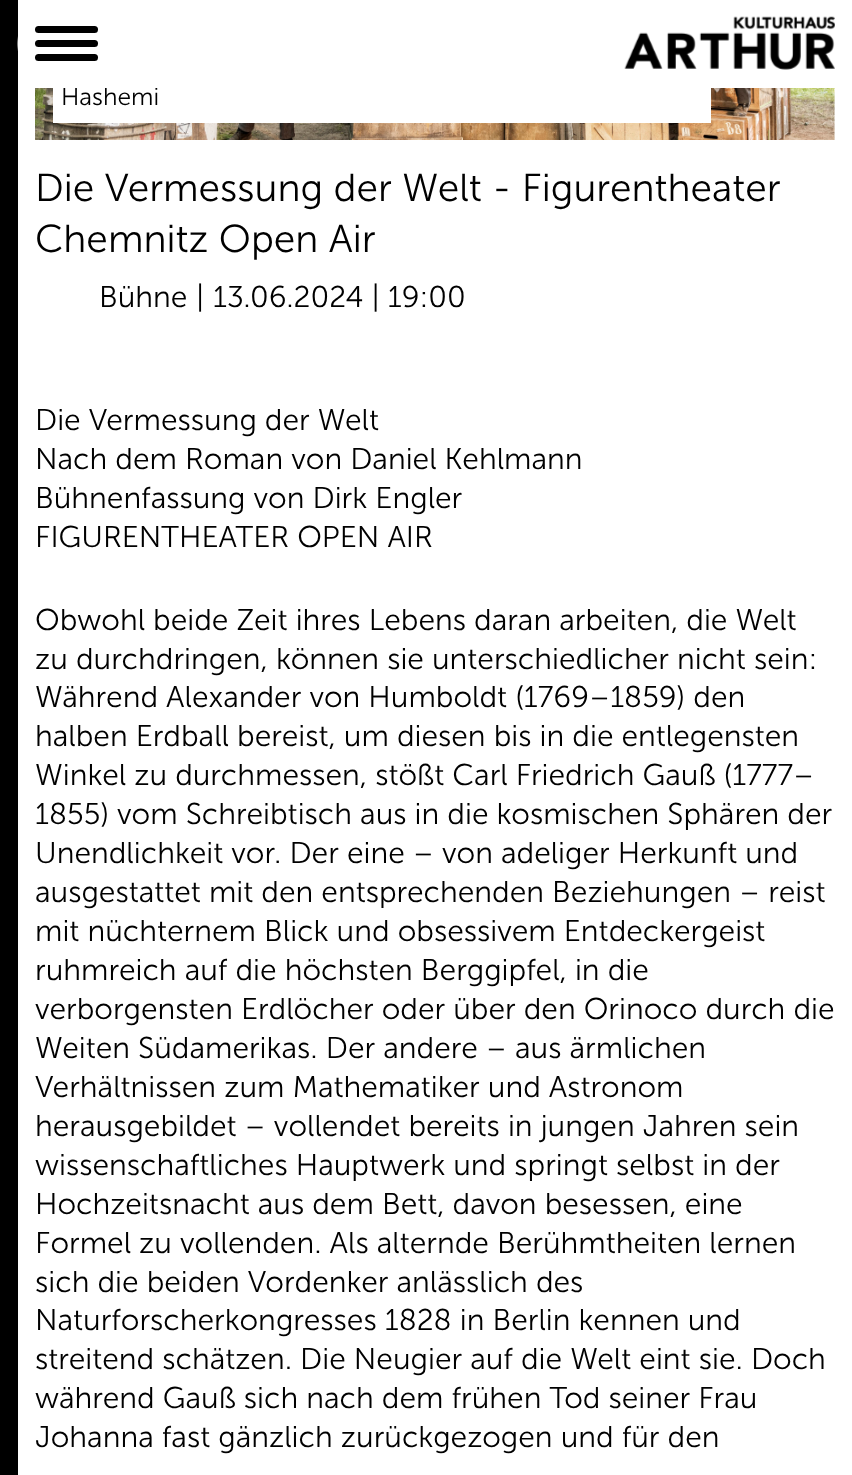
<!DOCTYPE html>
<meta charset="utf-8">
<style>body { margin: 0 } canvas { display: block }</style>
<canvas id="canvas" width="852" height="1475"></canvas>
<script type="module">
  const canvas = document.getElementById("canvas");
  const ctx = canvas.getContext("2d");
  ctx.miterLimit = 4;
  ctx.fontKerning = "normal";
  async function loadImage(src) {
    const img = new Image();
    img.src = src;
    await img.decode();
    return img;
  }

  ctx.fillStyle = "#000000";
  ctx.fillRect(0, 0, 852, 1475);
  ctx.drawImage(await loadImage("img1.png"), 17, 36, 1, 15);
  ctx.fillStyle = "#ffffff";
  ctx.fillRect(18, 88, 834, 1387);
  ctx.drawImage(await loadImage("img3.png"), 35, 88, 800, 52);
  ctx.fillRect(53, 88, 658, 35);
  ctx.font = "300 24.5px 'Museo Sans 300'";
  ctx.fillStyle = "#000000";
  ctx.fillText("Hashemi", 61, 105);
  ctx.fillStyle = "#ffffff";
  ctx.fillRect(18, 0, 834, 88);
  ctx.fillStyle = "#000000";
  ctx.beginPath();
  ctx.roundRect(35, 40, 63, 7, 3.5);
  ctx.fill();
  ctx.beginPath();
  ctx.roundRect(35, 26, 63, 7, 3.5);
  ctx.fill();
  ctx.beginPath();
  ctx.roundRect(35, 54, 63, 7, 3.5);
  ctx.fill();
  ctx.drawImage(await loadImage("img2.png"), 624, 16, 211, 54);
  ctx.font = "300 38.9px 'Museo Sans 300'";
  ctx.fillText("Die Vermessung der Welt - Figurentheater", 35, 201);
  ctx.fillText("Chemnitz Open Air", 35, 252);
  ctx.font = "300 29.95px 'Museo Sans 300'";
  ctx.fillText("Bühne", 99, 307);
  ctx.fillText("|", 196, 307);
  ctx.fillText("13.06.2024 | 19:00", 213, 307);
  ctx.fillText("Die Vermessung der Welt", 35, 430);
  ctx.fillText("Nach dem Roman von Daniel Kehlmann", 35, 469);
  ctx.fillText("Bühnenfassung von Dirk Engler", 35, 508);
  ctx.fillText("FIGURENTHEATER OPEN AIR", 35, 547);
  ctx.fillText("Obwohl beide Zeit ihres Lebens daran arbeiten, die Welt", 35, 630);
  ctx.fillText("zu durchdringen, können sie unterschiedlicher nicht sein:", 35, 669);
  ctx.fillText("Während Alexander von Humboldt (1769–1859) den", 35, 707);
  ctx.fillText("halben Erdball bereist, um diesen bis in die entlegensten", 35, 746);
  ctx.fillText("Winkel zu durchmessen, stößt Carl Friedrich Gauß (1777–", 35, 785);
  ctx.fillText("1855) vom Schreibtisch aus in die kosmischen Sphären der", 35, 824);
  ctx.fillText("Unendlichkeit vor. Der eine – von adeliger Herkunft und", 35, 863);
  ctx.fillText("ausgestattet mit den entsprechenden Beziehungen – reist", 35, 902);
  ctx.fillText("mit nüchternem Blick und obsessivem Entdeckergeist", 35, 941);
  ctx.fillText("ruhmreich auf die höchsten Berggipfel, in die", 35, 980);
  ctx.fillText("verborgensten Erdlöcher oder über den Orinoco durch die", 35, 1019);
  ctx.fillText("Weiten Südamerikas. Der andere – aus ärmlichen", 35, 1058);
  ctx.fillText("Verhältnissen zum Mathematiker und Astronom", 35, 1097);
  ctx.fillText("herausgebildet – vollendet bereits in jungen Jahren sein", 35, 1136);
  ctx.fillText("wissenschaftliches Hauptwerk und springt selbst in der", 35, 1175);
  ctx.fillText("Hochzeitsnacht aus dem Bett, davon besessen, eine", 35, 1214);
  ctx.fillText("Formel zu vollenden. Als alternde Berühmtheiten lernen", 35, 1253);
  ctx.fillText("sich die beiden Vordenker anlässlich des", 35, 1292);
  ctx.fillText("Naturforscherkongresses 1828 in Berlin kennen und", 35, 1330);
  ctx.fillText("streitend schätzen. Die Neugier auf die Welt eint sie. Doch", 35, 1369);
  ctx.fillText("während Gauß sich nach dem frühen Tod seiner Frau", 35, 1408);
  ctx.fillText("Johanna fast gänzlich zurückgezogen und für den", 35, 1447);
</script>
